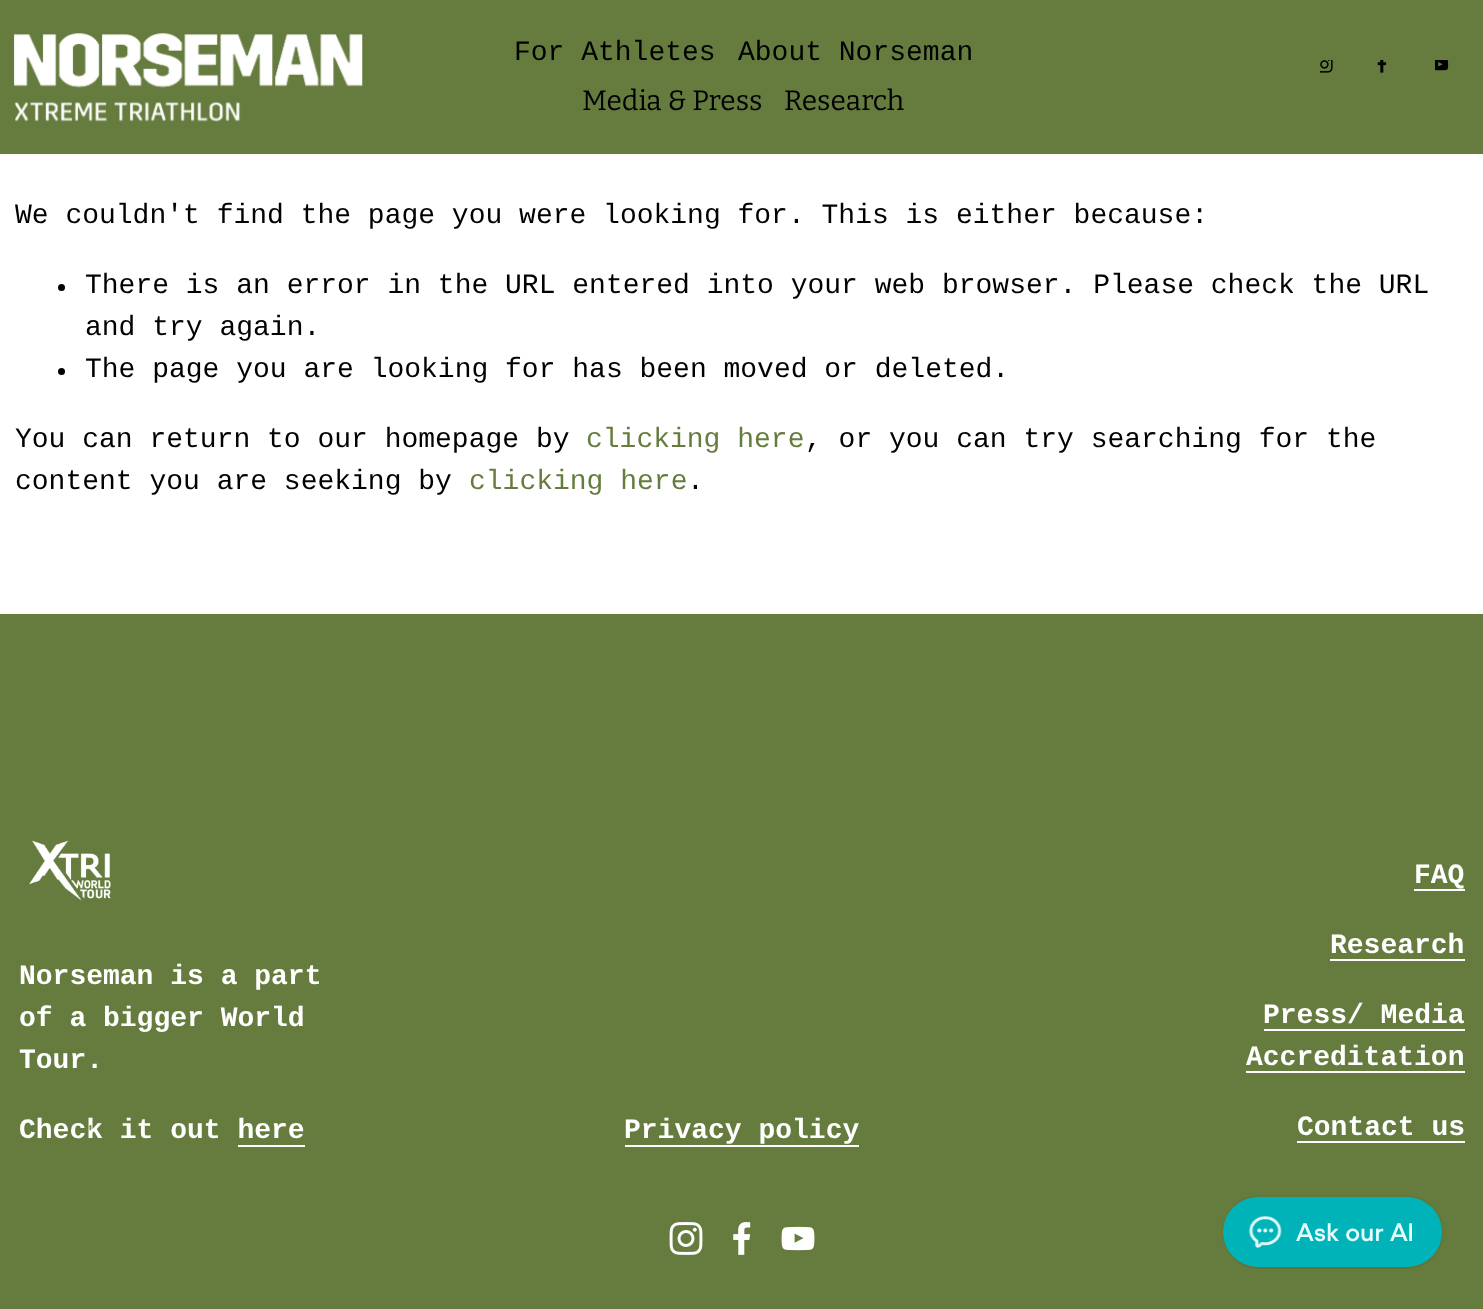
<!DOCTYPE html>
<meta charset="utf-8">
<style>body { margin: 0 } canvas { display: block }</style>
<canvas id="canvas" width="1483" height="1309"></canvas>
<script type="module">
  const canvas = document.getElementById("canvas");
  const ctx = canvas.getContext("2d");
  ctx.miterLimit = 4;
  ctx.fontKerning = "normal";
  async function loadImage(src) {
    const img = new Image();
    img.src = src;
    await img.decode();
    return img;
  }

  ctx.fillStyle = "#ffffff";
  ctx.fillRect(0, 0, 1483, 1309);
  ctx.fillStyle = "#667c3e";
  ctx.fillRect(0, 0, 1483, 154);
  ctx.drawImage(await loadImage("img1.png"), 14, 33, 349, 89);
  ctx.font = "28px Liberation Mono";
  ctx.fillStyle = "#000000";
  ctx.fillText("For Athletes", 514, 60);
  ctx.fillText("About Norseman", 738, 60);
  ctx.font = "28px Bitter";
  ctx.fillText("Media & Press", 582, 110);
  ctx.fillText("Research", 784, 110);
  ctx.drawImage(await loadImage("img2.png"), 1320, 60, 13, 13);
  ctx.drawImage(await loadImage("img3.png"), 1377, 60, 10, 13);
  ctx.drawImage(await loadImage("img4.png"), 1435, 60, 14, 11);
  ctx.font = "28px Liberation Mono";
  ctx.fillText("We couldn't find the page you were looking for. This is either because:", 15, 223);
  ctx.beginPath();
  ctx.arc(61.5, 287.5, 3.5, 0, Math.PI * 2);
  ctx.fill();
  ctx.fillText("There is an error in the URL entered into your web browser. Please check the URL", 85, 293);
  ctx.fillText("and try again.", 85, 335);
  ctx.beginPath();
  ctx.arc(61.5, 371.5, 3.5, 0, Math.PI * 2);
  ctx.fill();
  ctx.fillText("The page you are looking for has been moved or deleted.", 85, 377);
  ctx.fillText("You can return to our homepage by", 15, 447);
  ctx.fillStyle = "#667c3e";
  ctx.fillText("clicking here", 586, 447);
  ctx.fillStyle = "#000000";
  ctx.fillText(", or you can try searching for the", 805, 447);
  ctx.fillText("content you are seeking by", 15, 489);
  ctx.fillStyle = "#667c3e";
  ctx.fillText("clicking here", 469, 489);
  ctx.fillStyle = "#000000";
  ctx.fillText(".", 687, 489);
  ctx.fillStyle = "#667c3e";
  ctx.fillRect(0, 614, 1483, 695);
  ctx.drawImage(await loadImage("img5.png"), 29, 840, 82, 61);
  ctx.font = "bold 28px Liberation Mono";
  ctx.fillStyle = "#ffffff";
  ctx.fillText("FAQ", 1414, 883);
  ctx.fillRect(1414, 889, 51, 2);
  ctx.fillText("Research", 1330, 953);
  ctx.fillRect(1330, 959, 135, 2);
  ctx.fillText("Press/ Media", 1263, 1023);
  ctx.fillRect(1264, 1029, 201, 2);
  ctx.fillText("Accreditation", 1246, 1065);
  ctx.fillRect(1246, 1071, 219, 2);
  ctx.fillText("Contact us", 1297, 1135);
  ctx.fillRect(1297, 1141, 168, 2);
  ctx.fillText("Norseman is a part", 19, 984);
  ctx.fillText("of a bigger World", 19, 1026);
  ctx.fillText("Tour.", 19, 1068);
  ctx.fillText("Check it out here", 19, 1138);
  ctx.fillRect(238, 1145, 67, 2);
  ctx.fillText("Privacy policy", 624, 1138);
  ctx.fillRect(625, 1145, 234, 2);
  ctx.drawImage(await loadImage("img6.png"), 669, 1222, 34, 33);
  ctx.drawImage(await loadImage("img7.png"), 733, 1222, 18, 33);
  ctx.drawImage(await loadImage("img8.png"), 781, 1226, 34, 25);
  ctx.font = "24.5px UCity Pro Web";
  ctx.fillStyle = "#72864d";
  ctx.fillText("'", 88, 1143);
  ctx.beginPath();
  ctx.roundRect(1223, 1196, 220, 72, 36);
  ctx.strokeStyle = "#62773c";
  ctx.lineWidth = 2;
  ctx.stroke();
  ctx.fillStyle = "#61753b";
  ctx.beginPath();
  ctx.moveTo(1223, 1229);
  ctx.lineTo(1223, 1234);
  ctx.bezierCurveTo(1223, 1253, 1239, 1269, 1258, 1269);
  ctx.lineTo(1407, 1269);
  ctx.bezierCurveTo(1426, 1269, 1442, 1253, 1442, 1234);
  ctx.lineTo(1442, 1233);
  ctx.bezierCurveTo(1441, 1252, 1426, 1267, 1407, 1267);
  ctx.lineTo(1258, 1267);
  ctx.bezierCurveTo(1239, 1267, 1223, 1251, 1223, 1232);
  ctx.closePath();
  ctx.fill();
  ctx.fillStyle = "#00b3b9";
  ctx.beginPath();
  ctx.roundRect(1223, 1197, 219, 70, 35);
  ctx.fill();
  ctx.drawImage(await loadImage("img9.png"), 1249, 1216, 33, 32);
  ctx.font = "600 24.5px UCity Pro Web";
  ctx.fillStyle = "#e5feff";
  ctx.fillText("Ask our AI", 1296, 1241);
</script>
